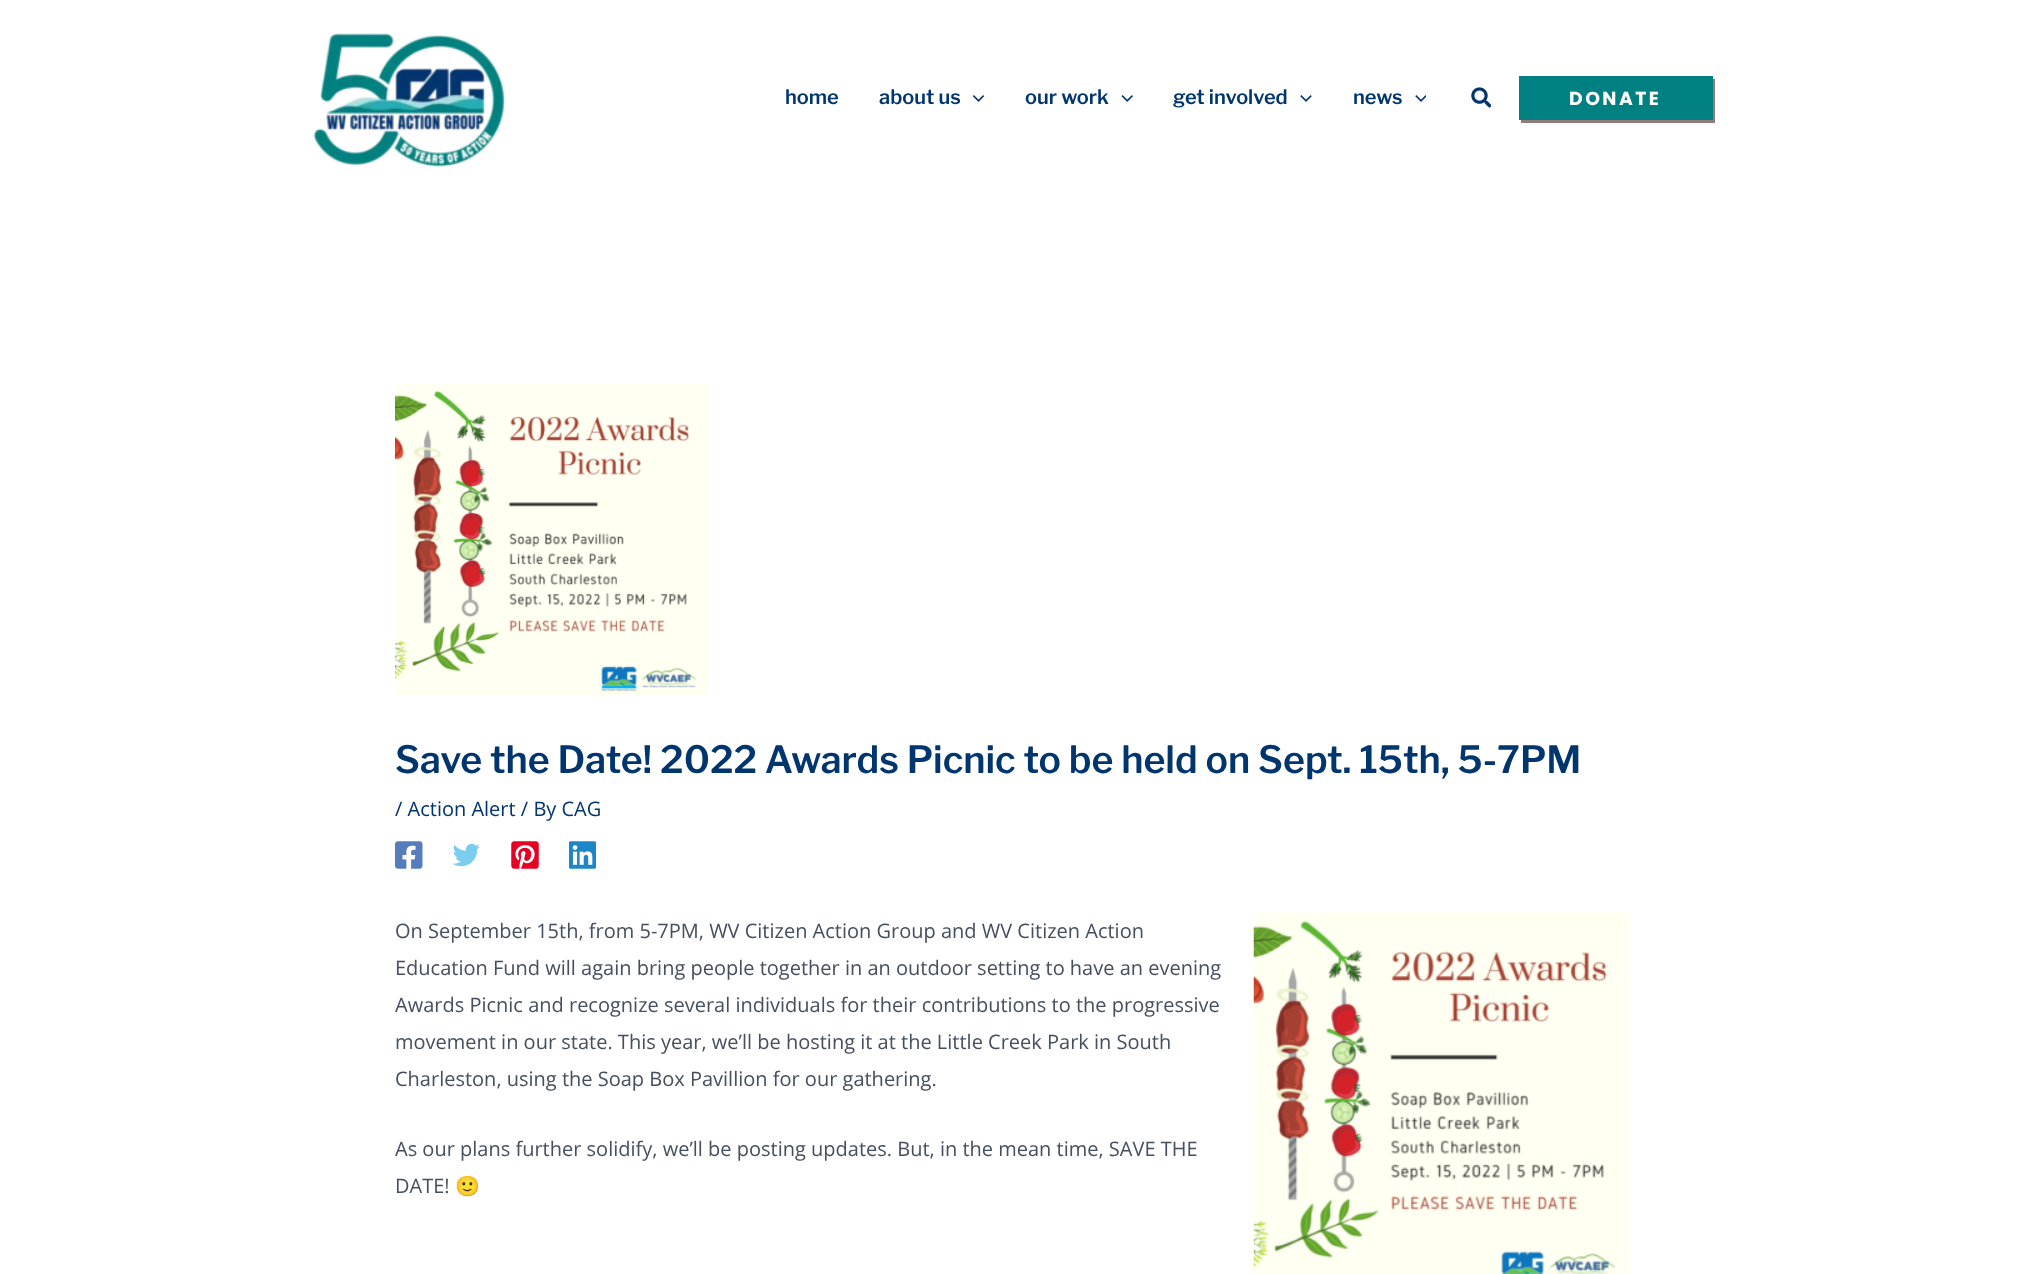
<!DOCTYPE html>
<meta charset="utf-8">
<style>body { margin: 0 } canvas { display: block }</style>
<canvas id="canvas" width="2023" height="1274"></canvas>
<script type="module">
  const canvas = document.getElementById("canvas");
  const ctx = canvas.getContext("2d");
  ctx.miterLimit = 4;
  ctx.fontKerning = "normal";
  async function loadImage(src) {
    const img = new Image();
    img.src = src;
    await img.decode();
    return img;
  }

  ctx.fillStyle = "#ffffff";
  ctx.fillRect(0, 0, 2023, 1274);
  ctx.drawImage(await loadImage("img1.png"), 313, 33, 192, 134);
  ctx.font = "600 20px Libre Franklin";
  ctx.fillStyle = "#00356e";
  ctx.fillText("home", 785, 104);
  ctx.fillText("about us", 879, 104);
  ctx.drawImage(await loadImage("img2.png"), 973, 95, 12, 7);
  ctx.fillText("our work", 1025, 104);
  ctx.drawImage(await loadImage("img3.png"), 1121, 95, 12, 7);
  ctx.fillText("get involved", 1173, 104);
  ctx.drawImage(await loadImage("img4.png"), 1300, 95, 12, 7);
  ctx.fillText("news", 1353, 104);
  ctx.drawImage(await loadImage("img5.png"), 1415, 95, 11, 7);
  ctx.drawImage(await loadImage("img6.png"), 1471, 87, 20, 21);
  ctx.fillStyle = "#937b7b";
  ctx.beginPath();
  ctx.moveTo(1521, 120);
  ctx.lineTo(1521, 123);
  ctx.lineTo(1715, 123);
  ctx.lineTo(1715, 79);
  ctx.lineTo(1712, 79);
  ctx.lineTo(1712, 120);
  ctx.closePath();
  ctx.fill();
  ctx.fillStyle = "#008080";
  ctx.fillRect(1519, 76, 194, 44);
  ctx.letterSpacing = "2.5px";
  ctx.font = "bold 18.75px Poppins";
  ctx.fillStyle = "#ffffff";
  ctx.fillText("DONATE", 1569, 105);
  ctx.drawImage(await loadImage("img7.png"), 395, 384, 313, 312);
  ctx.letterSpacing = "0px";
  ctx.font = "600 37.5px Libre Franklin";
  ctx.fillStyle = "#00356e";
  ctx.fillText("Save the Date! 2022 Awards Picnic to be held on Sept. 15th, 5-7PM", 395, 773);
  ctx.font = "20px Open Sans";
  ctx.fillText("/ Action Alert / By CAG", 395, 816);
  ctx.drawImage(await loadImage("img8.png"), 395, 841, 28, 28);
  ctx.drawImage(await loadImage("img9.png"), 453, 843, 27, 24);
  ctx.drawImage(await loadImage("img10.png"), 511, 841, 28, 28);
  ctx.drawImage(await loadImage("img11.png"), 569, 841, 27, 28);
  ctx.fillStyle = "#454f5e";
  ctx.fillText("On September 15th, from 5-7PM, WV Citizen Action Group and WV Citizen Action", 395, 938);
  ctx.fillText("Education Fund will again bring people together in an outdoor setting to have an evening", 395, 975);
  ctx.fillText("Awards Picnic and recognize several individuals for their contributions to the progressive", 395, 1012);
  ctx.fillText("movement in our state. This year, we’ll be hosting it at the Little Creek Park in South", 395, 1049);
  ctx.fillText("Charleston, using the Soap Box Pavillion for our gathering.", 395, 1086);
  ctx.drawImage(await loadImage("img12.png"), 1253, 912, 376, 362);
  ctx.fillText("As our plans further solidify, we’ll be posting updates. But, in the mean time, SAVE THE", 395, 1156);
  ctx.fillText("DATE!", 395, 1193);
  ctx.font = "20px Noto Color Emoji";
  ctx.fillText("🙂", 455, 1193);
</script>
